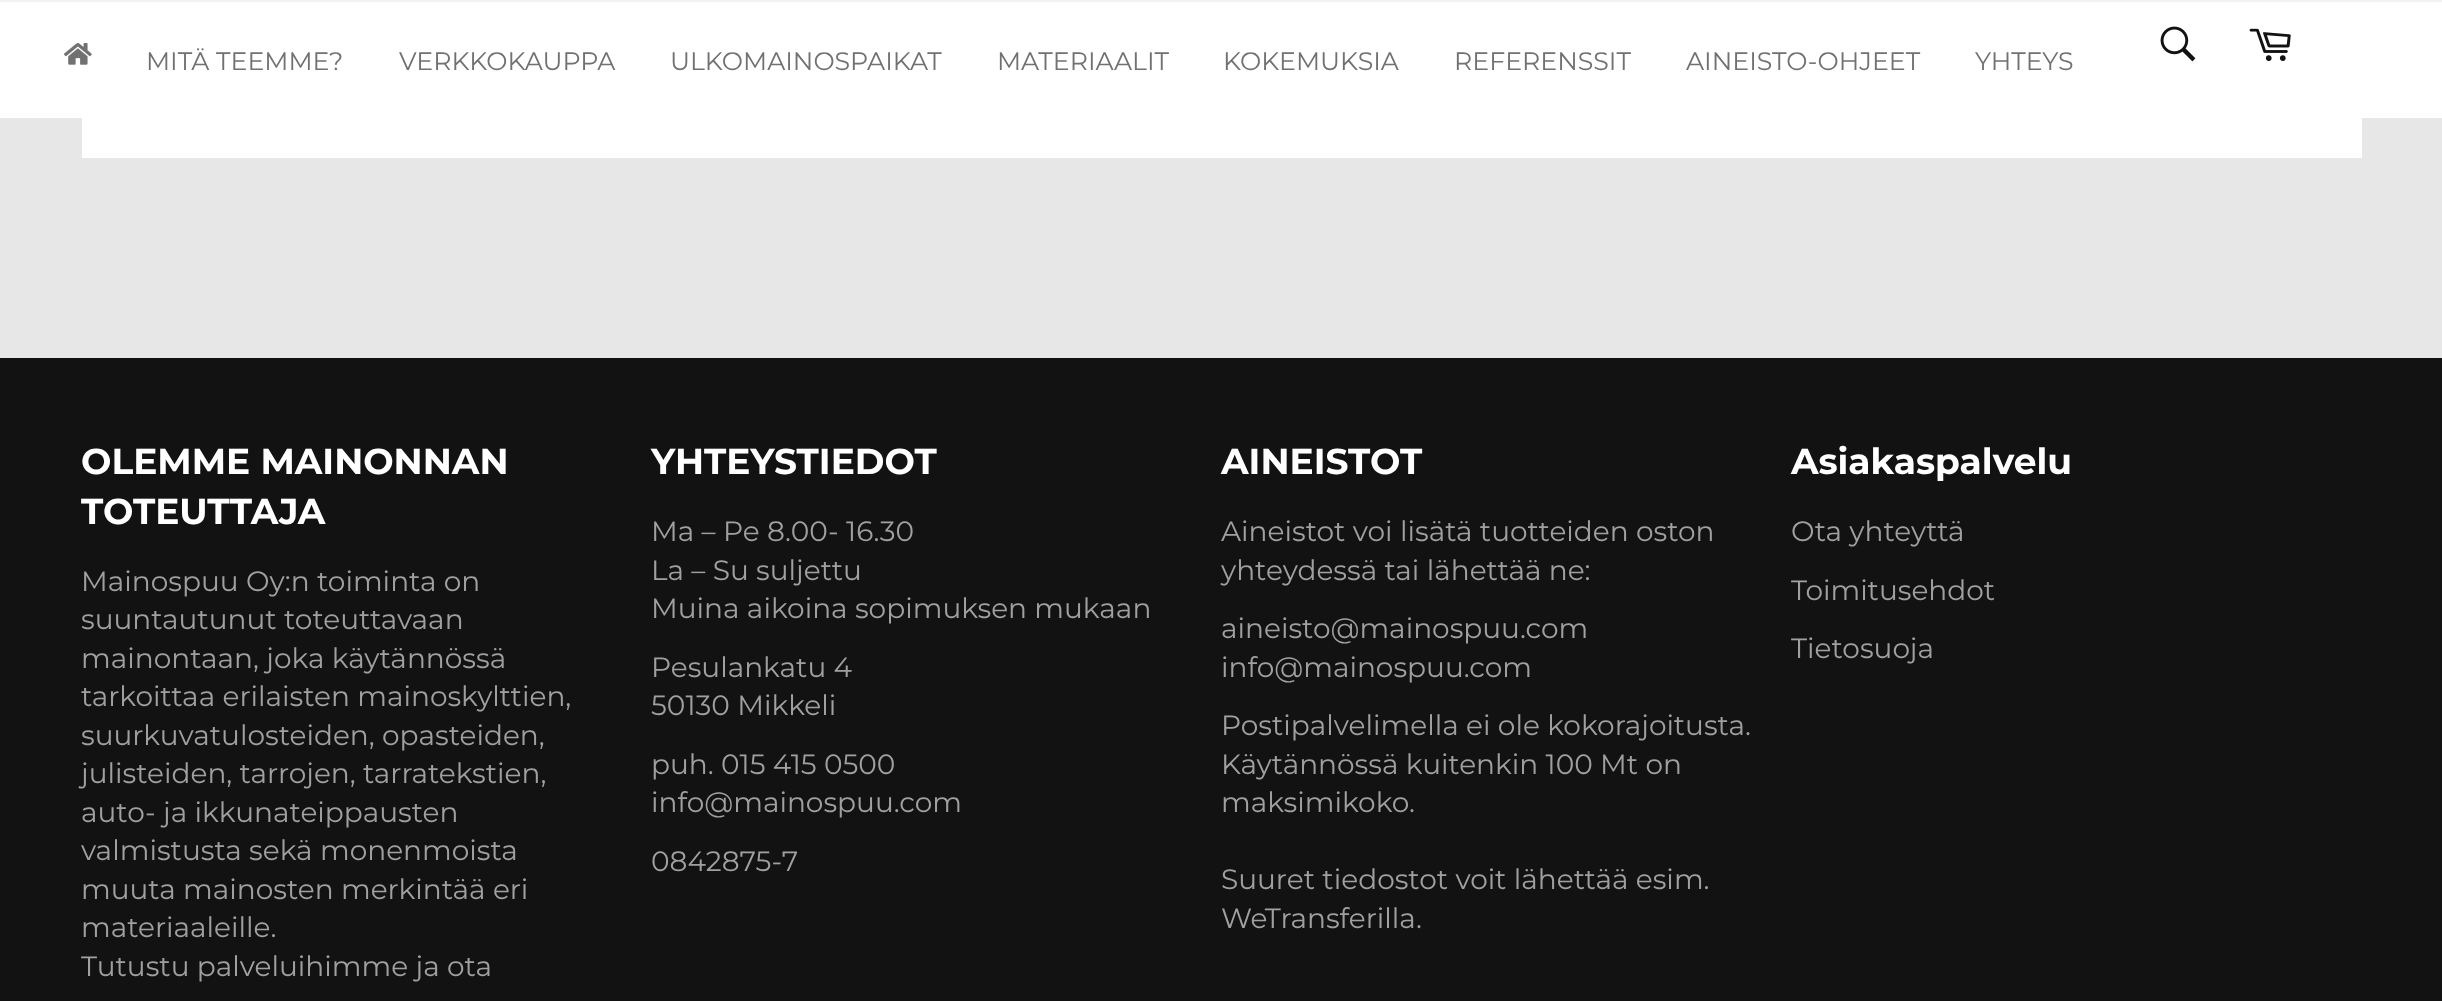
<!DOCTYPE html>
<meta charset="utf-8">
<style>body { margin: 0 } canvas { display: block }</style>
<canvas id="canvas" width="2442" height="1001"></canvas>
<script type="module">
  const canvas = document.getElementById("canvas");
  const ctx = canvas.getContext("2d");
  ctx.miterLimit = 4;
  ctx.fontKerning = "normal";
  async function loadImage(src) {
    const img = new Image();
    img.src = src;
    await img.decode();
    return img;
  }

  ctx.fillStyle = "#e7e7e7";
  ctx.fillRect(0, 0, 2442, 1001);
  ctx.fillStyle = "#f2f2f2";
  ctx.fillRect(0, 0, 2442, 2);
  ctx.fillStyle = "#ffffff";
  ctx.fillRect(0, 2, 2442, 116);
  ctx.drawImage(await loadImage("img1.png"), 64, 43, 28, 22);
  ctx.font = "25.25px Montserrat";
  ctx.fillStyle = "#717171";
  ctx.fillText("MITÄ TEEMME?", 146, 70);
  ctx.fillText("VERKKOKAUPPA", 399, 70);
  ctx.fillText("ULKOMAINOSPAIKAT", 670, 70);
  ctx.fillText("MATERIAALIT", 997, 70);
  ctx.fillText("KOKEMUKSIA", 1223, 70);
  ctx.fillText("REFERENSSIT", 1454, 70);
  ctx.fillText("AINEISTO-OHJEET", 1686, 70);
  ctx.fillText("YHTEYS", 1975, 70);
  ctx.drawImage(await loadImage("img2.png"), 2160, 26, 36, 36);
  ctx.drawImage(await loadImage("img3.png"), 2249, 28, 42, 33);
  ctx.fillStyle = "#ffffff";
  ctx.fillRect(82, 118, 2280, 40);
  ctx.fillStyle = "#131212";
  ctx.fillRect(0, 358, 2442, 643);
  ctx.font = "bold 36px Montserrat";
  ctx.fillStyle = "#ffffff";
  ctx.fillText("OLEMME MAINONNAN", 81, 474);
  ctx.fillText("TOTEUTTAJA", 81, 524);
  ctx.font = "28px Montserrat";
  ctx.fillStyle = "#a1a0a0";
  ctx.fillText("Mainospuu Oy:n toiminta on", 81, 591);
  ctx.fillText("suuntautunut toteuttavaan", 81, 629);
  ctx.fillText("mainontaan, joka käytännössä", 81, 668);
  ctx.fillText("tarkoittaa erilaisten mainoskylttien,", 81, 706);
  ctx.fillText("suurkuvatulosteiden, opasteiden,", 81, 745);
  ctx.fillText("julisteiden, tarrojen, tarratekstien,", 81, 783);
  ctx.fillText("auto- ja ikkunateippausten", 81, 822);
  ctx.fillText("valmistusta sekä monenmoista", 81, 860);
  ctx.fillText("muuta mainosten merkintää eri", 81, 899);
  ctx.fillText("materiaaleille.", 81, 937);
  ctx.fillText("Tutustu palveluihimme ja ota", 81, 976);
  ctx.font = "bold 36px Montserrat";
  ctx.fillStyle = "#ffffff";
  ctx.fillText("YHTEYSTIEDOT", 651, 474);
  ctx.font = "28px Montserrat";
  ctx.fillStyle = "#a1a0a0";
  ctx.fillText("Ma – Pe 8.00- 16.30", 651, 541);
  ctx.fillText("La – Su suljettu", 651, 580);
  ctx.fillText("Muina aikoina sopimuksen mukaan", 651, 618);
  ctx.fillText("Pesulankatu 4", 651, 677);
  ctx.fillText("50130 Mikkeli", 651, 715);
  ctx.fillText("puh. 015 415 0500", 651, 774);
  ctx.fillText("info@mainospuu.com", 651, 812);
  ctx.fillText("0842875-7", 651, 871);
  ctx.font = "bold 36px Montserrat";
  ctx.fillStyle = "#ffffff";
  ctx.fillText("AINEISTOT", 1221, 474);
  ctx.font = "28px Montserrat";
  ctx.fillStyle = "#a1a0a0";
  ctx.fillText("Aineistot voi lisätä tuotteiden oston", 1221, 541);
  ctx.fillText("yhteydessä tai lähettää ne:", 1221, 580);
  ctx.fillText("aineisto@mainospuu.com", 1221, 638);
  ctx.fillText("info@mainospuu.com", 1221, 677);
  ctx.fillText("Postipalvelimella ei ole kokorajoitusta.", 1221, 735);
  ctx.fillText("Käytännössä kuitenkin 100 Mt on", 1221, 774);
  ctx.fillText("maksimikoko.", 1221, 812);
  ctx.fillText("Suuret tiedostot voit lähettää esim.", 1221, 889);
  ctx.fillText("WeTransferilla.", 1221, 928);
  ctx.font = "bold 36px Montserrat";
  ctx.fillStyle = "#ffffff";
  ctx.fillText("Asiakaspalvelu", 1791, 474);
  ctx.font = "28px Montserrat";
  ctx.fillStyle = "#a1a0a0";
  ctx.fillText("Ota yhteyttä", 1791, 541);
  ctx.fillText("Toimitusehdot", 1791, 600);
  ctx.fillText("Tietosuoja", 1791, 658);
</script>
